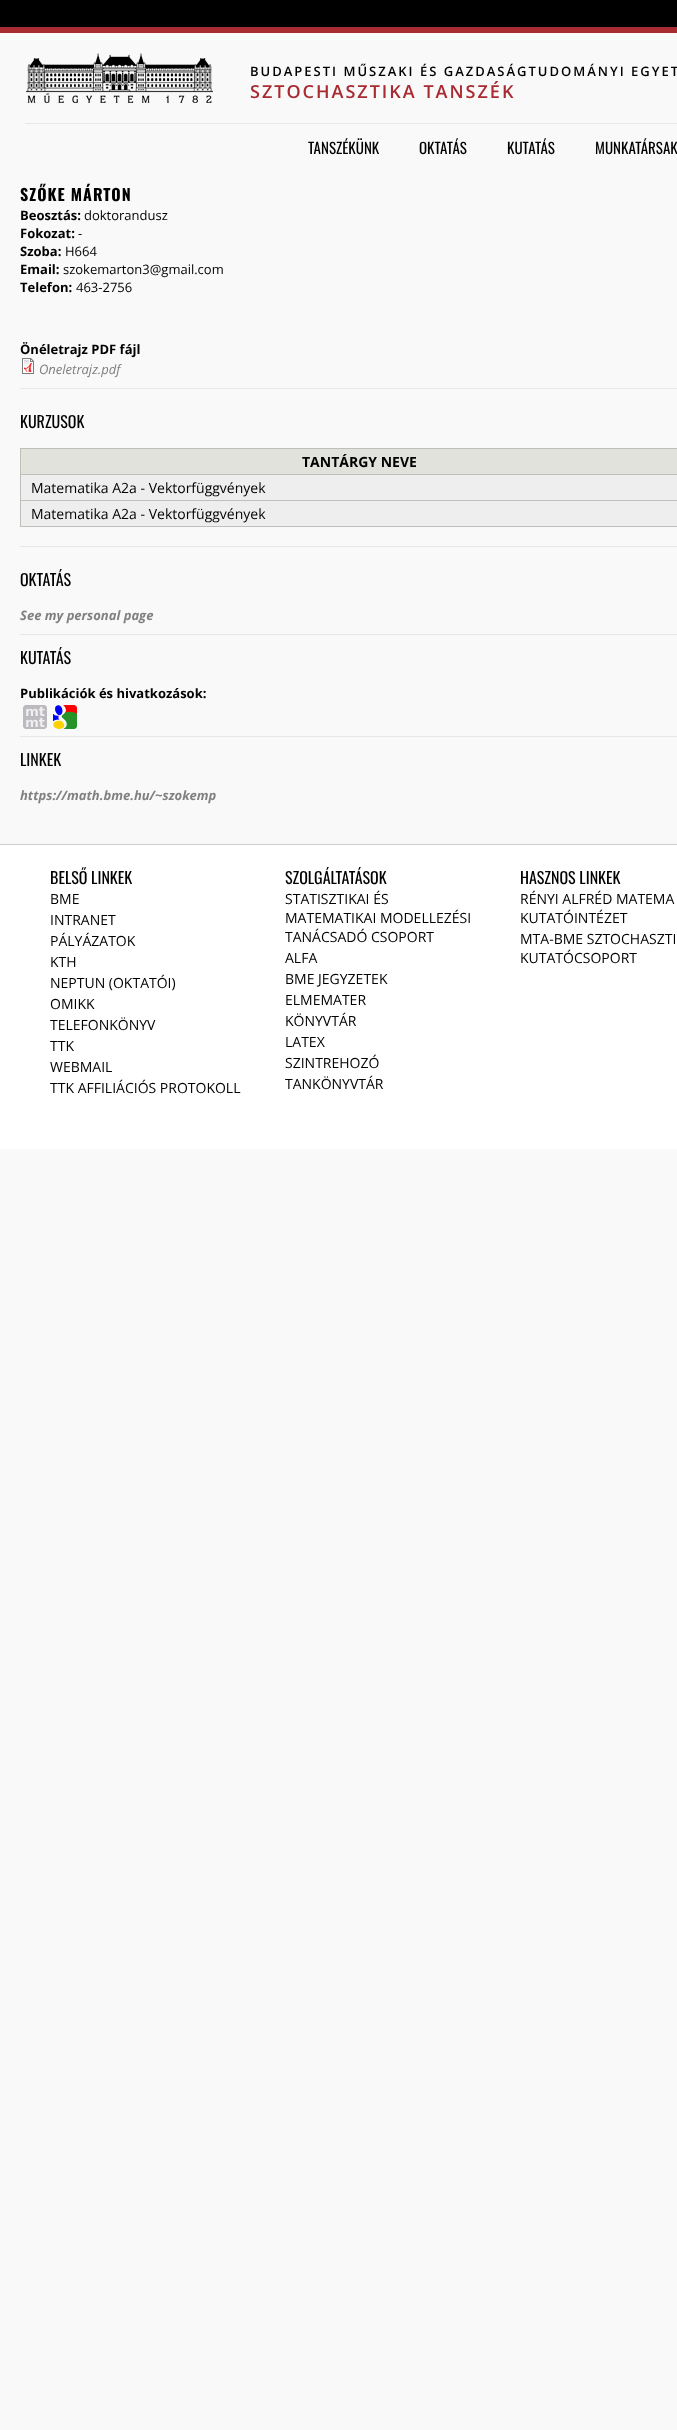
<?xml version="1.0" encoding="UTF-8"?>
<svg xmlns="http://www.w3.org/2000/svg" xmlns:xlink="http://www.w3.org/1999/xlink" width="677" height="2430">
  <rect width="100%" height="100%" fill="#f9f9fa" />
  <rect width="677" height="27" fill="#000000" />
  <rect y="27" width="677" height="6" fill="#a82b31" />
  <image x="26" y="53" width="187" height="50" xlink:href="image1.png" />
  <rect x="25" y="123" width="652" height="1" fill="#e6e6e6" />
  <image x="22" y="358" width="12" height="16" xlink:href="image2.png" />
  <rect x="20" y="388" width="657" height="1" fill="#e6e6e6" />
  <rect x="21" y="449" width="656" height="25" fill="#e1e2dc" />
  <rect x="20" y="448" width="657" height="1" fill="#bebfb9" />
  <rect x="20" y="474" width="657" height="1" fill="#bebfb9" />
  <rect x="20" y="500" width="657" height="1" fill="#bebfb9" />
  <rect x="20" y="526" width="657" height="1" fill="#bebfb9" />
  <rect x="20" y="500" width="1" height="27" fill="#bebfb9" />
  <rect x="20" y="474" width="1" height="27" fill="#bebfb9" />
  <rect x="20" y="448" width="1" height="27" fill="#bebfb9" />
  <rect x="21" y="475" width="656" height="25" fill="#eeeeee" />
  <rect x="21" y="501" width="656" height="25" fill="#eeeeee" />
  <rect x="20" y="546" width="657" height="1" fill="#e6e6e6" />
  <rect x="20" y="634" width="657" height="1" fill="#e6e6e6" />
  <image x="23" y="705" width="24" height="24" xlink:href="image3.png" />
  <image x="53" y="705" width="24" height="24" xlink:href="image4.png" />
  <rect x="20" y="736" width="657" height="1" fill="#e6e6e6" />
  <rect y="845" width="677" height="304" fill="#ffffff" />
  <rect y="844" width="677" height="1" fill="#cccccc" />
  <text x="250" y="76" style="font-family: Open Sans; font-size: 13px; font-weight: 600; letter-spacing: 2px; fill: #000000">BUDAPESTI MŰSZAKI ÉS GAZDASÁGTUDOMÁNYI EGYET</text>
  <text x="250" y="98" style="font-family: Open Sans; font-size: 18px; font-weight: 600; letter-spacing: 2px; fill: #a82b31">SZTOCHASZTIKA TANSZÉK</text>
  <text x="308" y="154" style="font-family: Oswald; font-size: 15px; fill: #000000">TANSZÉKÜNK</text>
  <text x="419" y="154" style="font-family: Oswald; font-size: 15px; fill: #000000">OKTATÁS</text>
  <text x="507" y="154" style="font-family: Oswald; font-size: 15px; fill: #000000">KUTATÁS</text>
  <text x="595" y="154" style="font-family: Oswald; font-size: 15px; fill: #000000">MUNKATÁRSAK</text>
  <text x="20" y="201" style="font-family: Oswald; font-size: 16px; font-weight: bold; letter-spacing: 1px; fill: #000000">SZŐKE MÁRTON</text>
  <text x="20" y="220" style="font-family: Open Sans; font-size: 13px; font-weight: bold; fill: #000000">Beosztás:</text>
  <text x="84" y="220" style="font-family: Open Sans; font-size: 13px; fill: #000000">doktorandusz</text>
  <text x="20" y="238" style="font-family: Open Sans; font-size: 13px; font-weight: bold; fill: #000000">Fokozat:</text>
  <text x="78" y="238" style="font-family: Open Sans; font-size: 13px; fill: #000000">-</text>
  <text x="20" y="256" style="font-family: Open Sans; font-size: 13px; font-weight: bold; fill: #000000">Szoba:</text>
  <text x="65" y="256" style="font-family: Open Sans; font-size: 13px; fill: #000000">H664</text>
  <text x="20" y="274" style="font-family: Open Sans; font-size: 13px; font-weight: bold; fill: #000000">Email:</text>
  <text x="63" y="274" style="font-family: Open Sans; font-size: 13px; fill: #000000">szokemarton3@gmail.com</text>
  <text x="20" y="292" style="font-family: Open Sans; font-size: 13px; font-weight: bold; fill: #000000">Telefon:</text>
  <text x="76" y="292" style="font-family: Open Sans; font-size: 13px; fill: #000000">463-2756</text>
  <text x="20" y="354" style="font-family: Open Sans; font-size: 13px; font-weight: bold; fill: #000000">Önéletrajz PDF fájl</text>
  <text x="39" y="374" style="font-family: Open Sans; font-size: 13px; font-style: italic; fill: #808080">Oneletrajz.pdf</text>
  <text x="20" y="428" style="font-family: Oswald; font-size: 16px; fill: #000000">KURZUSOK</text>
  <text x="302" y="467" style="font-family: Open Sans; font-size: 14px; font-weight: bold; fill: #000000">TANTÁRGY NEVE</text>
  <text x="31" y="493" style="font-family: Open Sans; font-size: 14px; fill: #000000">Matematika A2a - Vektorfüggvények</text>
  <text x="31" y="519" style="font-family: Open Sans; font-size: 14px; fill: #000000">Matematika A2a - Vektorfüggvények</text>
  <text x="20" y="586" style="font-family: Oswald; font-size: 16px; fill: #000000">OKTATÁS</text>
  <text x="20" y="620" style="font-family: Open Sans; font-size: 13px; font-weight: bold; font-style: italic; fill: #808080">See my personal page</text>
  <text x="20" y="664" style="font-family: Oswald; font-size: 16px; fill: #000000">KUTATÁS</text>
  <text x="20" y="698" style="font-family: Open Sans; font-size: 13px; font-weight: bold; fill: #000000">Publikációk és hivatkozások:</text>
  <text x="20" y="766" style="font-family: Oswald; font-size: 16px; fill: #000000">LINKEK</text>
  <text x="20" y="800" style="font-family: Open Sans; font-size: 13px; font-weight: bold; font-style: italic; fill: #808080">https://math.bme.hu/~szokemp</text>
  <text x="50" y="884" style="font-family: Oswald; font-size: 16px; fill: #000000">BELSŐ LINKEK</text>
  <text x="50" y="904" style="font-family: Open Sans; font-size: 14px; fill: #000000">BME</text>
  <text x="50" y="925" style="font-family: Open Sans; font-size: 14px; fill: #000000">INTRANET</text>
  <text x="50" y="946" style="font-family: Open Sans; font-size: 14px; fill: #000000">PÁLYÁZATOK</text>
  <text x="50" y="967" style="font-family: Open Sans; font-size: 14px; fill: #000000">KTH</text>
  <text x="50" y="988" style="font-family: Open Sans; font-size: 14px; fill: #000000">NEPTUN (OKTATÓI)</text>
  <text x="50" y="1009" style="font-family: Open Sans; font-size: 14px; fill: #000000">OMIKK</text>
  <text x="50" y="1030" style="font-family: Open Sans; font-size: 14px; fill: #000000">TELEFONKÖNYV</text>
  <text x="50" y="1051" style="font-family: Open Sans; font-size: 14px; fill: #000000">TTK</text>
  <text x="50" y="1072" style="font-family: Open Sans; font-size: 14px; fill: #000000">WEBMAIL</text>
  <text x="50" y="1093" style="font-family: Open Sans; font-size: 14px; fill: #000000">TTK AFFILIÁCIÓS PROTOKOLL</text>
  <text x="285" y="884" style="font-family: Oswald; font-size: 16px; fill: #000000">SZOLGÁLTATÁSOK</text>
  <text x="285" y="904" style="font-family: Open Sans; font-size: 14px; fill: #000000">STATISZTIKAI ÉS</text>
  <text x="285" y="923" style="font-family: Open Sans; font-size: 14px; fill: #000000">MATEMATIKAI MODELLEZÉSI</text>
  <text x="285" y="942" style="font-family: Open Sans; font-size: 14px; fill: #000000">TANÁCSADÓ CSOPORT</text>
  <text x="285" y="963" style="font-family: Open Sans; font-size: 14px; fill: #000000">ALFA</text>
  <text x="285" y="984" style="font-family: Open Sans; font-size: 14px; fill: #000000">BME JEGYZETEK</text>
  <text x="285" y="1005" style="font-family: Open Sans; font-size: 14px; fill: #000000">ELMEMATER</text>
  <text x="285" y="1026" style="font-family: Open Sans; font-size: 14px; fill: #000000">KÖNYVTÁR</text>
  <text x="285" y="1047" style="font-family: Open Sans; font-size: 14px; fill: #000000">LATEX</text>
  <text x="285" y="1068" style="font-family: Open Sans; font-size: 14px; fill: #000000">SZINTREHOZÓ</text>
  <text x="285" y="1089" style="font-family: Open Sans; font-size: 14px; fill: #000000">TANKÖNYVTÁR</text>
  <text x="520" y="884" style="font-family: Oswald; font-size: 16px; fill: #000000">HASZNOS LINKEK</text>
  <text x="520" y="904" style="font-family: Open Sans; font-size: 14px; fill: #000000">RÉNYI ALFRÉD MATEMA</text>
  <text x="520" y="923" style="font-family: Open Sans; font-size: 14px; fill: #000000">KUTATÓINTÉZET</text>
  <text x="520" y="944" style="font-family: Open Sans; font-size: 14px; fill: #000000">MTA-BME SZTOCHASZTI</text>
  <text x="520" y="963" style="font-family: Open Sans; font-size: 14px; fill: #000000">KUTATÓCSOPORT</text>
</svg>
